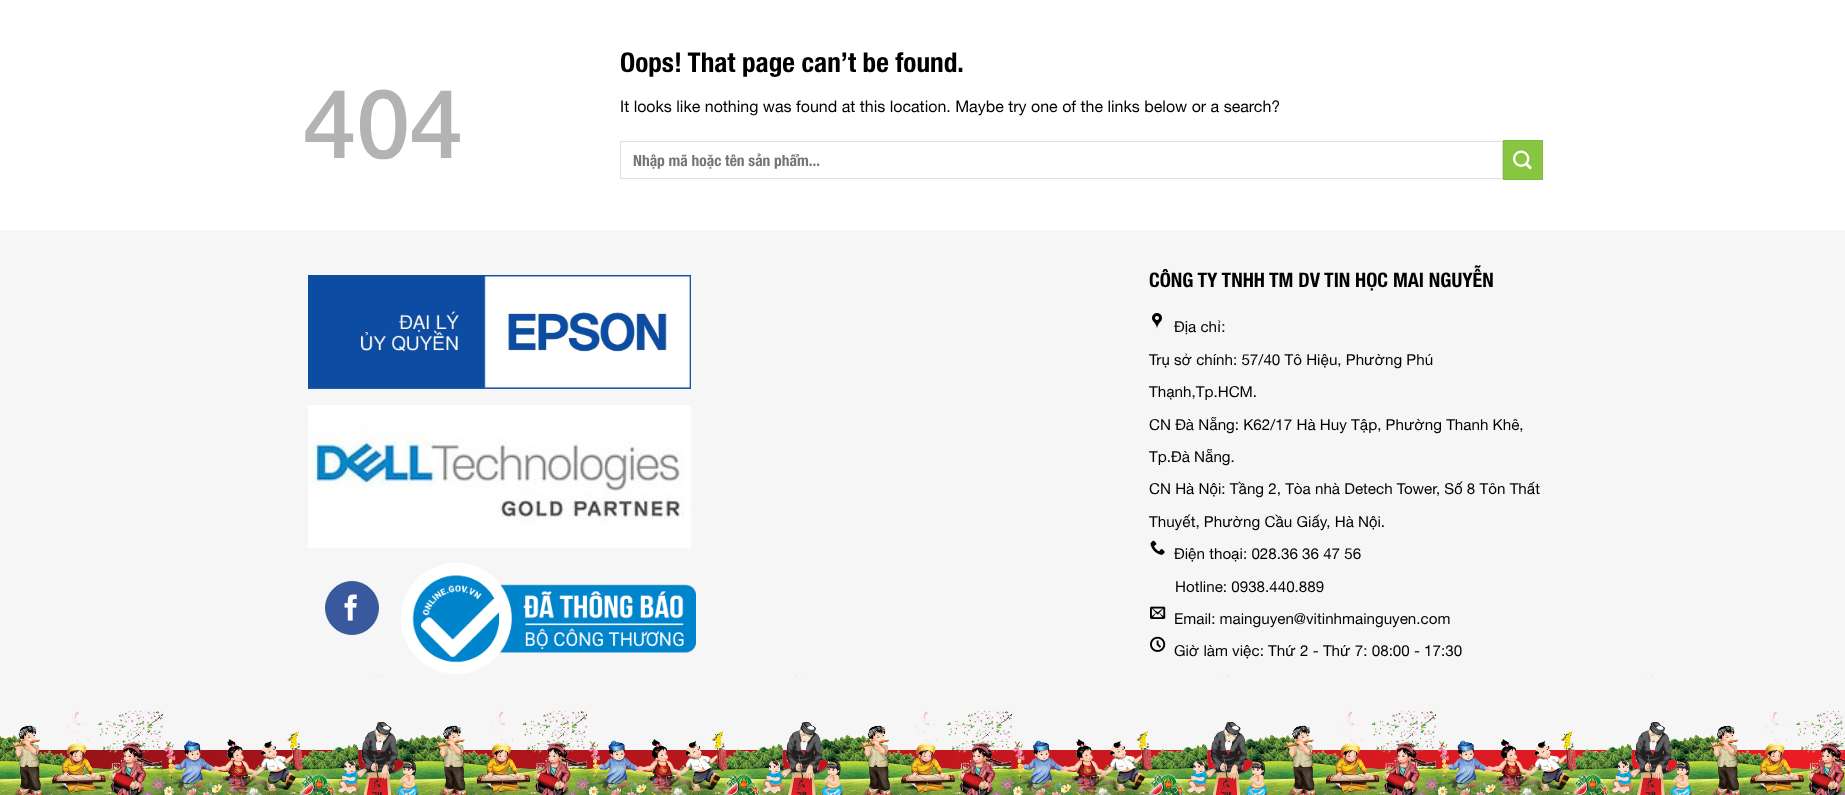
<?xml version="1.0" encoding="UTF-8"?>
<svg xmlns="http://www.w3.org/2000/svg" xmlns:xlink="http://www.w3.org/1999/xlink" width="1845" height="795">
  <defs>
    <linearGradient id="g1" gradientUnits="userSpaceOnUse" x1="0" y1="793" x2="1845" y2="793"><stop offset="0" stop-color="#971217" /><stop offset="1" stop-color="#ed1c24" /></linearGradient>
  </defs>
  <rect width="100%" height="100%" fill="#ffffff" />
  <rect x="620.5" y="141.5" width="882" height="37" fill="none" stroke="#dddddd" />
  <rect x="1503.5" y="140.5" width="39" height="39" fill="#88c540" stroke="#81bb3d" />
  <image x="1513" y="150" width="19" height="20" xlink:href="image1.png" />
  <rect y="230" width="1845" height="520" fill="#f6f6f6" />
  <image x="308" y="275" width="383" height="114" xlink:href="image2.png" />
  <image x="308" y="405" width="383" height="143" xlink:href="image3.png" />
  <circle cx="352" cy="608" r="26.5" fill="#3a589d" stroke="#3a589d" />
  <image x="344" y="594" width="13" height="27" xlink:href="image4.png" />
  <image x="401" y="563" width="295" height="111" xlink:href="image5.png" />
  <image x="1152" y="313" width="10" height="16" xlink:href="image6.png" />
  <image x="1150" y="540" width="15" height="15" xlink:href="image7.png" />
  <image x="1150" y="606" width="16" height="13" xlink:href="image8.png" />
  <image x="1150" y="636" width="16" height="16" xlink:href="image9.png" />
  <rect x="37" y="750" width="1808" height="22" fill="url(#g1)" />
  <rect x="1493" y="771" width="9" height="1" fill="#ffffff" fill-opacity="0.06" />
  <image x="0" y="675" width="1845" height="120" xlink:href="image10.png" />
  <text x="303" y="158" style="font-family: Helvetica Neue; font-size: 96px; font-weight: 500; fill: #b3b3b3">404</text>
  <text x="620" y="72" style="font-family: Helvetica Neue; font-size: 27.25px; font-weight: bold; fill: #000000">Oops! That page can’t be found.</text>
  <text x="620" y="112" style="font-family: Helvetica Neue; font-size: 16px; fill: #000000">It looks like nothing was found at this location. Maybe try one of the links below or a search?</text>
  <text x="633" y="166" style="font-family: Helvetica Neue; font-size: 15.5px; font-weight: bold; fill: #757575">Nhập mã hoặc tên sản phẩm...</text>
  <text x="1149" y="287" style="font-family: Helvetica Neue; font-size: 20px; font-weight: bold; fill: #000000">CÔNG TY TNHH TM DV TIN HỌC MAI NGUYỄN</text>
  <text x="1174" y="332" style="font-family: Helvetica Neue; font-size: 15.2px; fill: #000000">Địa chỉ:</text>
  <text x="1149" y="365" style="font-family: Helvetica Neue; font-size: 15.2px; fill: #000000">Trụ sở chính: 57/40 Tô Hiệu, Phường Phú</text>
  <text x="1149" y="397" style="font-family: Helvetica Neue; font-size: 15.2px; fill: #000000">Thạnh,Tp.HCM.</text>
  <text x="1149" y="430" style="font-family: Helvetica Neue; font-size: 15.2px; fill: #000000">CN Đà Nẵng: K62/17 Hà Huy Tập, Phường Thanh Khê,</text>
  <text x="1149" y="462" style="font-family: Helvetica Neue; font-size: 15.2px; fill: #000000">Tp.Đà Nẵng.</text>
  <text x="1149" y="494" style="font-family: Helvetica Neue; font-size: 15.2px; fill: #000000">CN Hà Nội: Tầng 2, Tòa nhà Detech Tower, Số 8 Tôn Thất</text>
  <text x="1149" y="527" style="font-family: Helvetica Neue; font-size: 15.2px; fill: #000000">Thuyết, Phường Cầu Giấy, Hà Nội.</text>
  <text x="1174" y="559" style="font-family: Helvetica Neue; font-size: 15.2px; fill: #000000">Điện thoại: 028.36 36 47 56</text>
  <text x="1175" y="592" style="font-family: Helvetica Neue; font-size: 15.2px; fill: #000000">Hotline: 0938.440.889</text>
  <text x="1174" y="624" style="font-family: Helvetica Neue; font-size: 15.2px; fill: #000000">Email: mainguyen@vitinhmainguyen.com</text>
  <text x="1174" y="656" style="font-family: Helvetica Neue; font-size: 15.2px; fill: #000000">Giờ làm việc: Thứ 2 - Thứ 7: 08:00 - 17:30</text>
</svg>
